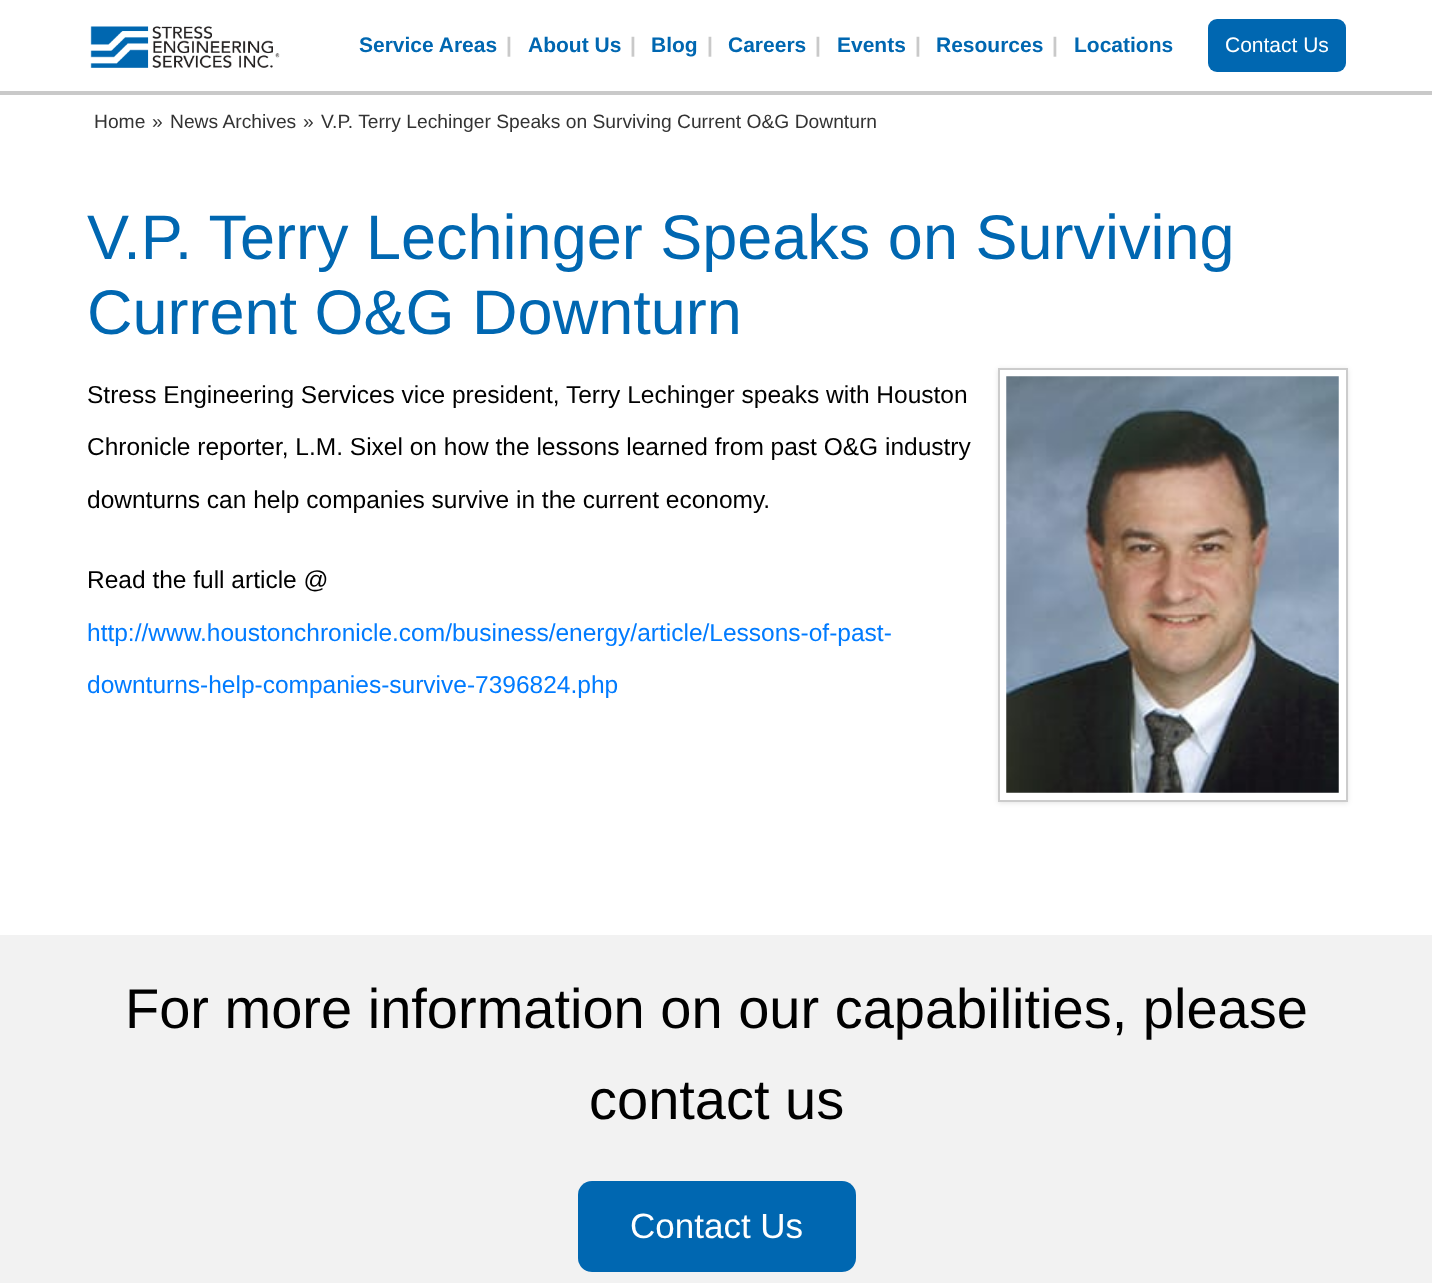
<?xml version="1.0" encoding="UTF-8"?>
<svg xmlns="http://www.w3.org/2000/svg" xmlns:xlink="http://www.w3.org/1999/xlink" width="1432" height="1283">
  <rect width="100%" height="100%" fill="#ffffff" />
  <rect y="91" width="1432" height="4" fill="#c9c9c9" />
  <image x="90" y="26" width="190" height="42" xlink:href="image1.png" />
  <rect x="1208" y="19" width="138" height="53" rx="9" fill="#0067b1" />
  <rect x="998" y="369" width="350" height="434" fill="#000000" fill-opacity="0.1" filter="blur(2.5px)" />
  <rect x="999" y="369" width="348" height="432" fill="#ffffff" stroke="#cccccc" stroke-width="2" />
  <image x="1006" y="376" width="333" height="417" xlink:href="image2.png" />
  <rect y="935" width="1432" height="348" fill="#f2f2f2" />
  <rect x="578" y="1181" width="278" height="91" rx="14" fill="#0067b1" />
  <text x="359" y="52" style="font-family: Liberation Sans; font-size: 21px; font-weight: bold; fill: #0067b1">Service Areas</text>
  <text x="506" y="52" style="font-family: Liberation Sans; font-size: 21px; font-weight: bold; fill: #c9c9c9">|</text>
  <text x="528" y="52" style="font-family: Liberation Sans; font-size: 21px; font-weight: bold; fill: #0067b1">About Us</text>
  <text x="630" y="52" style="font-family: Liberation Sans; font-size: 21px; font-weight: bold; fill: #c9c9c9">|</text>
  <text x="651" y="52" style="font-family: Liberation Sans; font-size: 21px; font-weight: bold; fill: #0067b1">Blog</text>
  <text x="707" y="52" style="font-family: Liberation Sans; font-size: 21px; font-weight: bold; fill: #c9c9c9">|</text>
  <text x="728" y="52" style="font-family: Liberation Sans; font-size: 21px; font-weight: bold; fill: #0067b1">Careers</text>
  <text x="815" y="52" style="font-family: Liberation Sans; font-size: 21px; font-weight: bold; fill: #c9c9c9">|</text>
  <text x="837" y="52" style="font-family: Liberation Sans; font-size: 21px; font-weight: bold; fill: #0067b1">Events</text>
  <text x="915" y="52" style="font-family: Liberation Sans; font-size: 21px; font-weight: bold; fill: #c9c9c9">|</text>
  <text x="936" y="52" style="font-family: Liberation Sans; font-size: 21px; font-weight: bold; fill: #0067b1">Resources</text>
  <text x="1052" y="52" style="font-family: Liberation Sans; font-size: 21px; font-weight: bold; fill: #c9c9c9">|</text>
  <text x="1074" y="52" style="font-family: Liberation Sans; font-size: 21px; font-weight: bold; fill: #0067b1">Locations</text>
  <text x="1225" y="52" style="font-family: Liberation Sans; font-size: 21px; fill: #ffffff">Contact Us</text>
  <text x="94" y="128" style="font-family: Liberation Sans; font-size: 19.25px; fill: #333333">Home</text>
  <text x="152" y="128" style="font-family: Liberation Sans; font-size: 19.25px; fill: #333333">»</text>
  <text x="170" y="128" style="font-family: Liberation Sans; font-size: 19.25px; fill: #333333">News Archives</text>
  <text x="303" y="128" style="font-family: Liberation Sans; font-size: 19.25px; fill: #333333">»</text>
  <text x="321" y="128" style="font-family: Liberation Sans; font-size: 19.25px; fill: #333333">V.P. Terry Lechinger Speaks on Surviving Current O&amp;G Downturn</text>
  <text x="87" y="259" style="font-family: Liberation Sans; font-size: 63px; fill: #0067b1">V.P. Terry Lechinger Speaks on Surviving</text>
  <text x="87" y="334" style="font-family: Liberation Sans; font-size: 63px; fill: #0067b1">Current O&amp;G Downturn</text>
  <text x="87" y="403" style="font-family: Liberation Sans; font-size: 24.5px; fill: #000000">Stress Engineering Services vice president, Terry Lechinger speaks with Houston</text>
  <text x="87" y="455" style="font-family: Liberation Sans; font-size: 24.5px; fill: #000000">Chronicle reporter, L.M. Sixel on how the lessons learned from past O&amp;G industry</text>
  <text x="87" y="508" style="font-family: Liberation Sans; font-size: 24.5px; fill: #000000">downturns can help companies survive in the current economy.</text>
  <text x="87" y="588" style="font-family: Liberation Sans; font-size: 24.5px; fill: #000000">Read the full article @</text>
  <text x="87" y="641" style="font-family: Liberation Sans; font-size: 24.5px; fill: #007bff">http://www.houstonchronicle.com/business/energy/article/Lessons-of-past-</text>
  <text x="87" y="693" style="font-family: Liberation Sans; font-size: 24.5px; fill: #007bff">downturns-help-companies-survive-7396824.php</text>
  <text x="125" y="1028" style="font-family: Liberation Sans; font-size: 56px; fill: #000000">For more information on our capabilities, please</text>
  <text x="589" y="1119" style="font-family: Liberation Sans; font-size: 56px; fill: #000000">contact us</text>
  <text x="630" y="1238" style="font-family: Liberation Sans; font-size: 35px; fill: #ffffff">Contact Us</text>
</svg>
